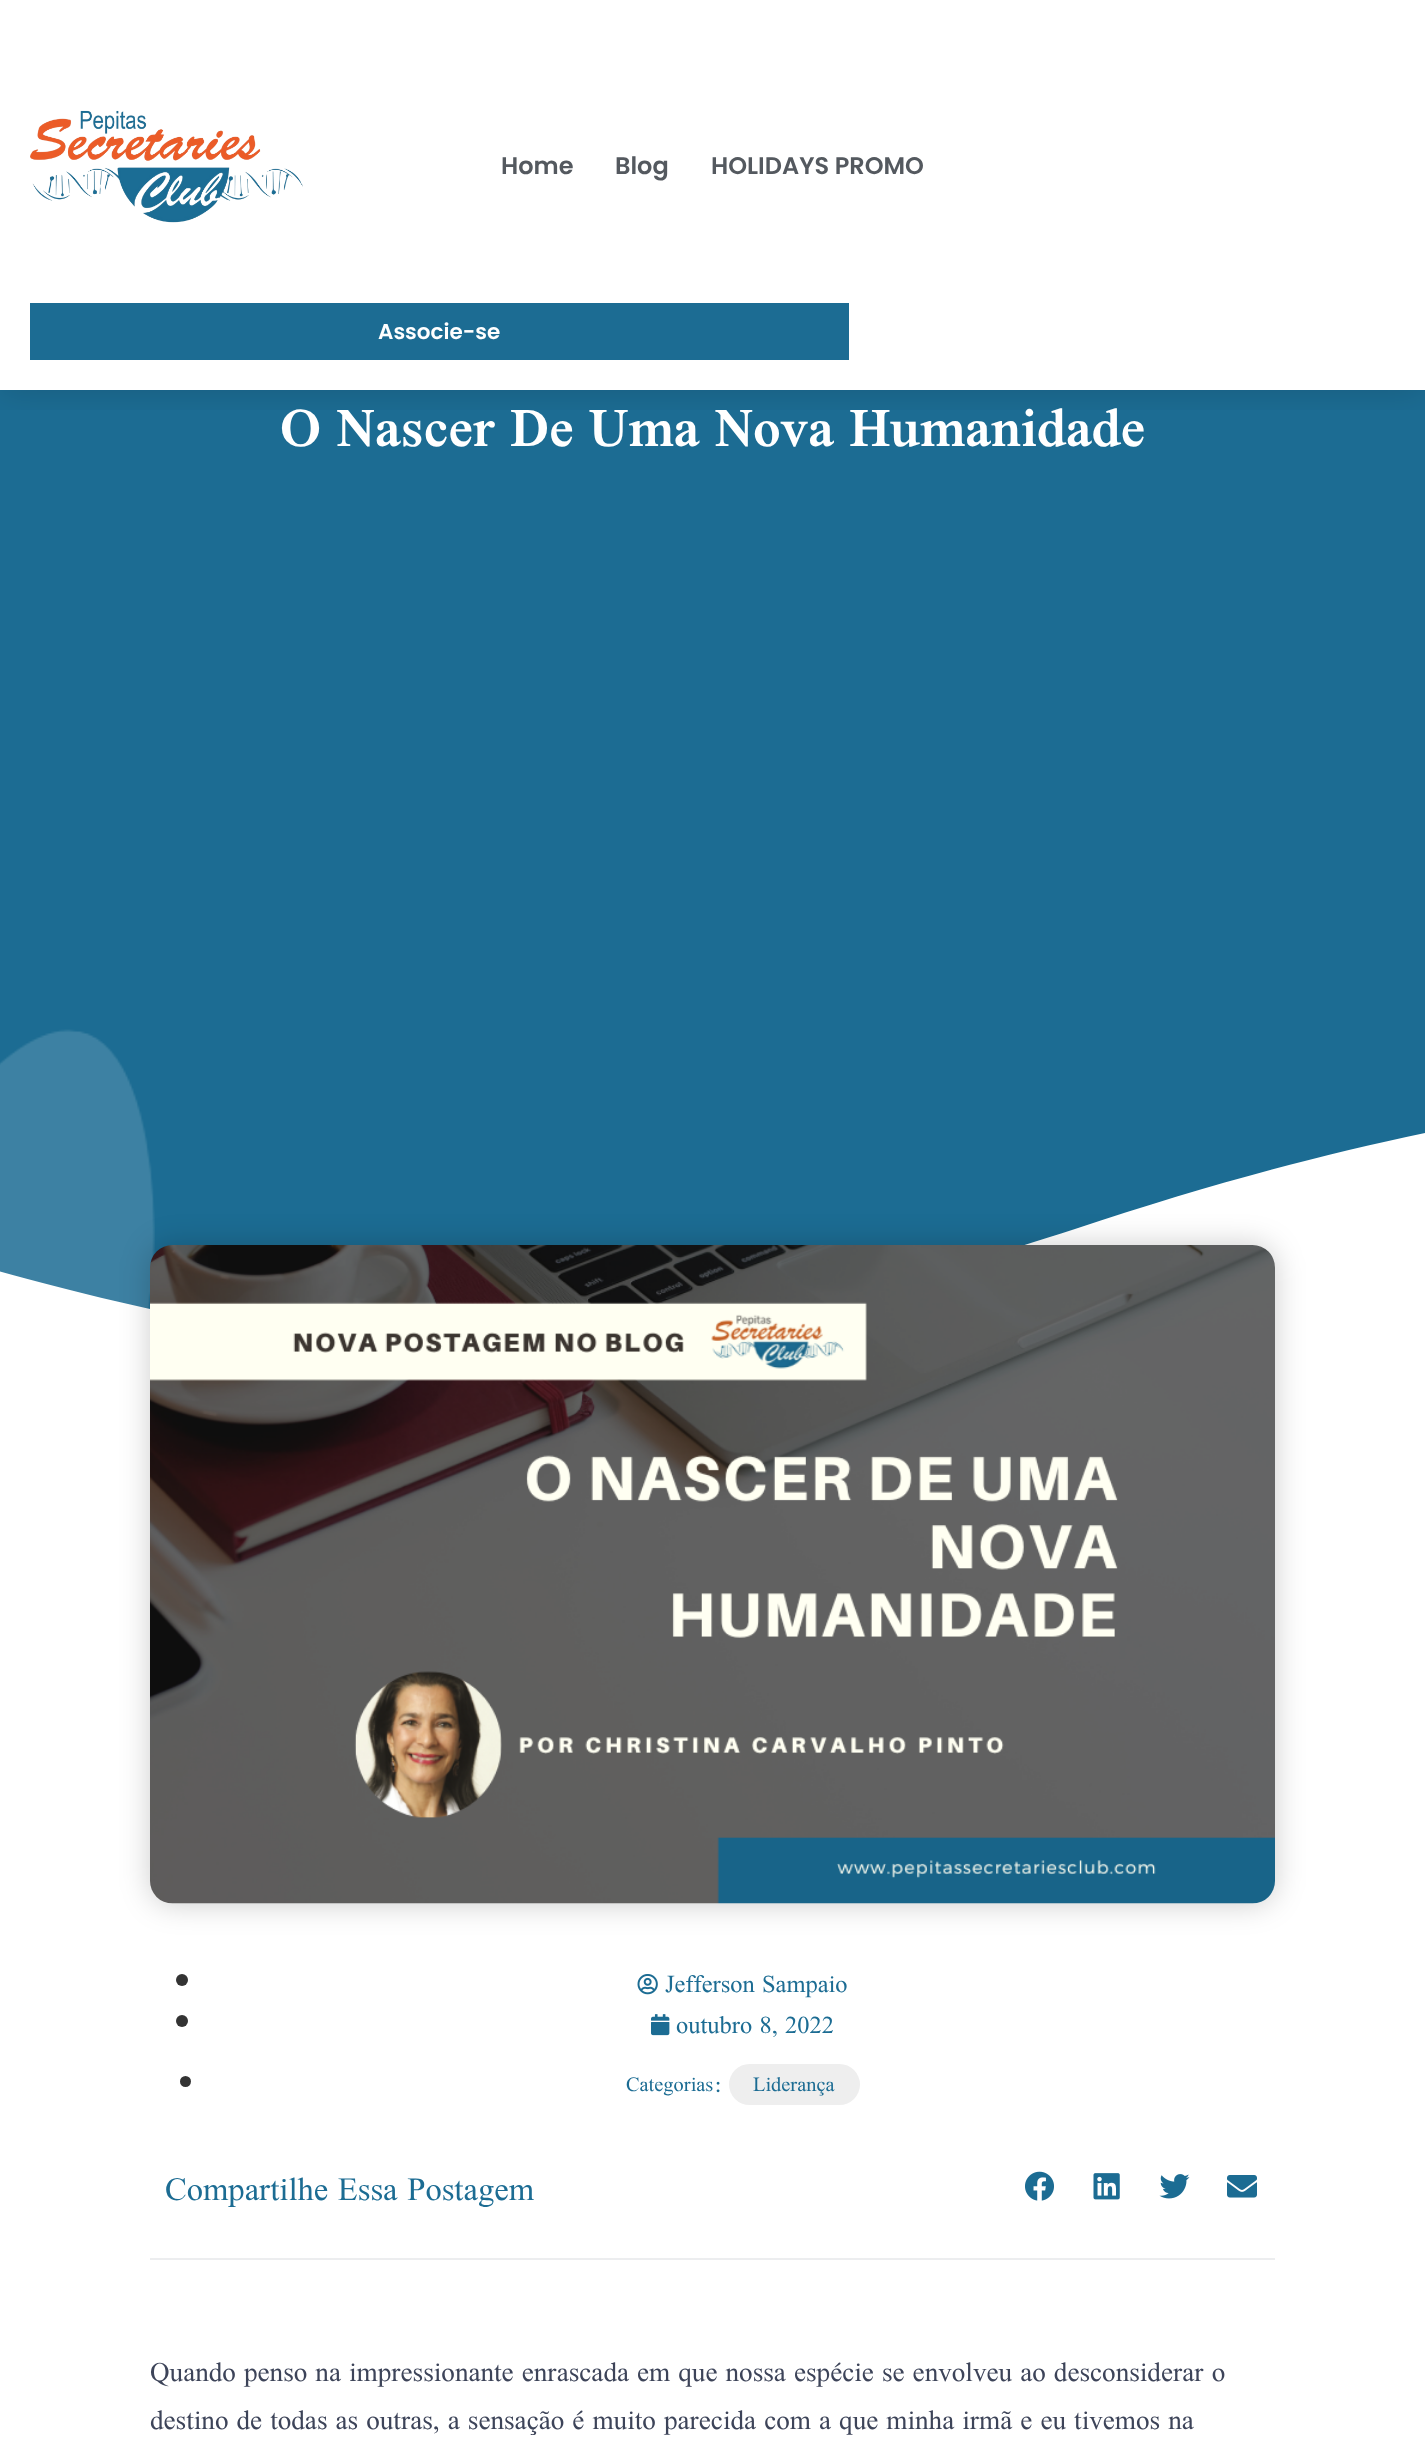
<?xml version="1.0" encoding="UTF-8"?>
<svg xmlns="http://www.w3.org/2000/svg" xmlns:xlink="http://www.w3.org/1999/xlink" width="1425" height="2441">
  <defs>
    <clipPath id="clip1"><rect x="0" y="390" width="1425" height="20" /></clipPath>
    <clipPath id="clip2"><rect y="1074" width="1425" height="293" /></clipPath>
  </defs>
  <rect width="100%" height="100%" fill="#ffffff" />
  <rect y="390" width="1425" height="919" fill="#1c6c93" />
  <g clip-path="url(#clip1)">
    <rect width="1425" height="390" fill="#000000" fill-opacity="0.15" filter="blur(18px)" />
  </g>
  <image x="30" y="110" width="273" height="113" xlink:href="image1.png" />
  <rect x="30" y="303" width="819" height="57" fill="#1c6c93" />
  <image x="0" y="1029" width="155" height="280" xlink:href="image2.png" />
  <g clip-path="url(#clip2)">
    <path d="M 423 1349 c 84 7 191 -1 280 -16 c 87 -14 263 -69 372 -104 c 281 -94 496 -130 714 -146 c 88 -6 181 -10 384 8 c 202 17 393 75 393 75 v 202 h -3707 v -89 c 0 0 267 -95 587 -89 c 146 2 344 19 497 65 c 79 24 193 54 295 71 c 101 19 147 20 185 23 z" fill="#ffffff" />
  </g>
  <rect x="150" y="1245" width="1125" height="659" rx="23" fill="#000000" fill-opacity="0.2" filter="blur(15px)" />
  <image x="150" y="1245" width="1125" height="659" xlink:href="image3.png" />
  <circle cx="182" cy="1980" r="6" fill="#333333" />
  <image x="637" y="1974" width="21" height="21" xlink:href="image4.png" />
  <circle cx="182" cy="2021" r="6" fill="#333333" />
  <image x="651" y="2014" width="19" height="22" xlink:href="image5.png" />
  <circle cx="185.5" cy="2081.5" r="5.5" fill="#333333" />
  <rect x="729" y="2064" width="131" height="41" rx="20.5" fill="#eeeeee" />
  <rect x="150" y="2258" width="1125" height="2" fill="#ecedef" />
  <image x="1025" y="2171" width="29" height="30" xlink:href="image6.png" />
  <image x="1093" y="2173" width="27" height="27" xlink:href="image7.png" />
  <image x="1159" y="2174" width="31" height="25" xlink:href="image8.png" />
  <image x="1227" y="2175" width="30" height="23" xlink:href="image9.png" />
  <text x="501" y="174" style="font-family: Poppins; font-size: 24px; font-weight: 600; fill: #54595f">Home</text>
  <text x="615" y="174" style="font-family: Poppins; font-size: 24px; font-weight: 600; fill: #54595f">Blog</text>
  <text x="711" y="174" style="font-family: Poppins; font-size: 24px; font-weight: 600; fill: #54595f">HOLIDAYS PROMO</text>
  <text x="378" y="339" style="font-family: Poppins; font-size: 21.5px; font-weight: 600; fill: #ffffff">Associe-se</text>
  <text x="280" y="446" style="font-family: Scheherazade New; font-size: 60px; font-weight: 600; fill: #ffffff">O Nascer De Uma Nova Humanidade</text>
  <text x="665" y="1992" style="font-family: Scheherazade New; font-size: 27px; fill: #1c6c93">Jefferson Sampaio</text>
  <text x="676" y="2033" style="font-family: Scheherazade New; font-size: 27px; fill: #1c6c93">outubro 8, 2022</text>
  <text x="626" y="2091" style="font-family: Scheherazade New; font-size: 22.5px; fill: #1c6c93">Categorias:</text>
  <text x="753" y="2091" style="font-family: Scheherazade New; font-size: 22.5px; fill: #1c6c93">Liderança</text>
  <text x="165" y="2200" style="font-family: Scheherazade New; font-size: 36px; fill: #1c6c93">Compartilhe Essa Postagem</text>
  <text x="150" y="2381" style="font-family: Scheherazade New; font-size: 30px; fill: #3d4459">Quando penso na impressionante enrascada em que nossa espécie se envolveu ao desconsiderar o</text>
  <text x="150" y="2429" style="font-family: Scheherazade New; font-size: 30px; fill: #3d4459">destino de todas as outras, a sensação é muito parecida com a que minha irmã e eu tivemos na</text>
</svg>
